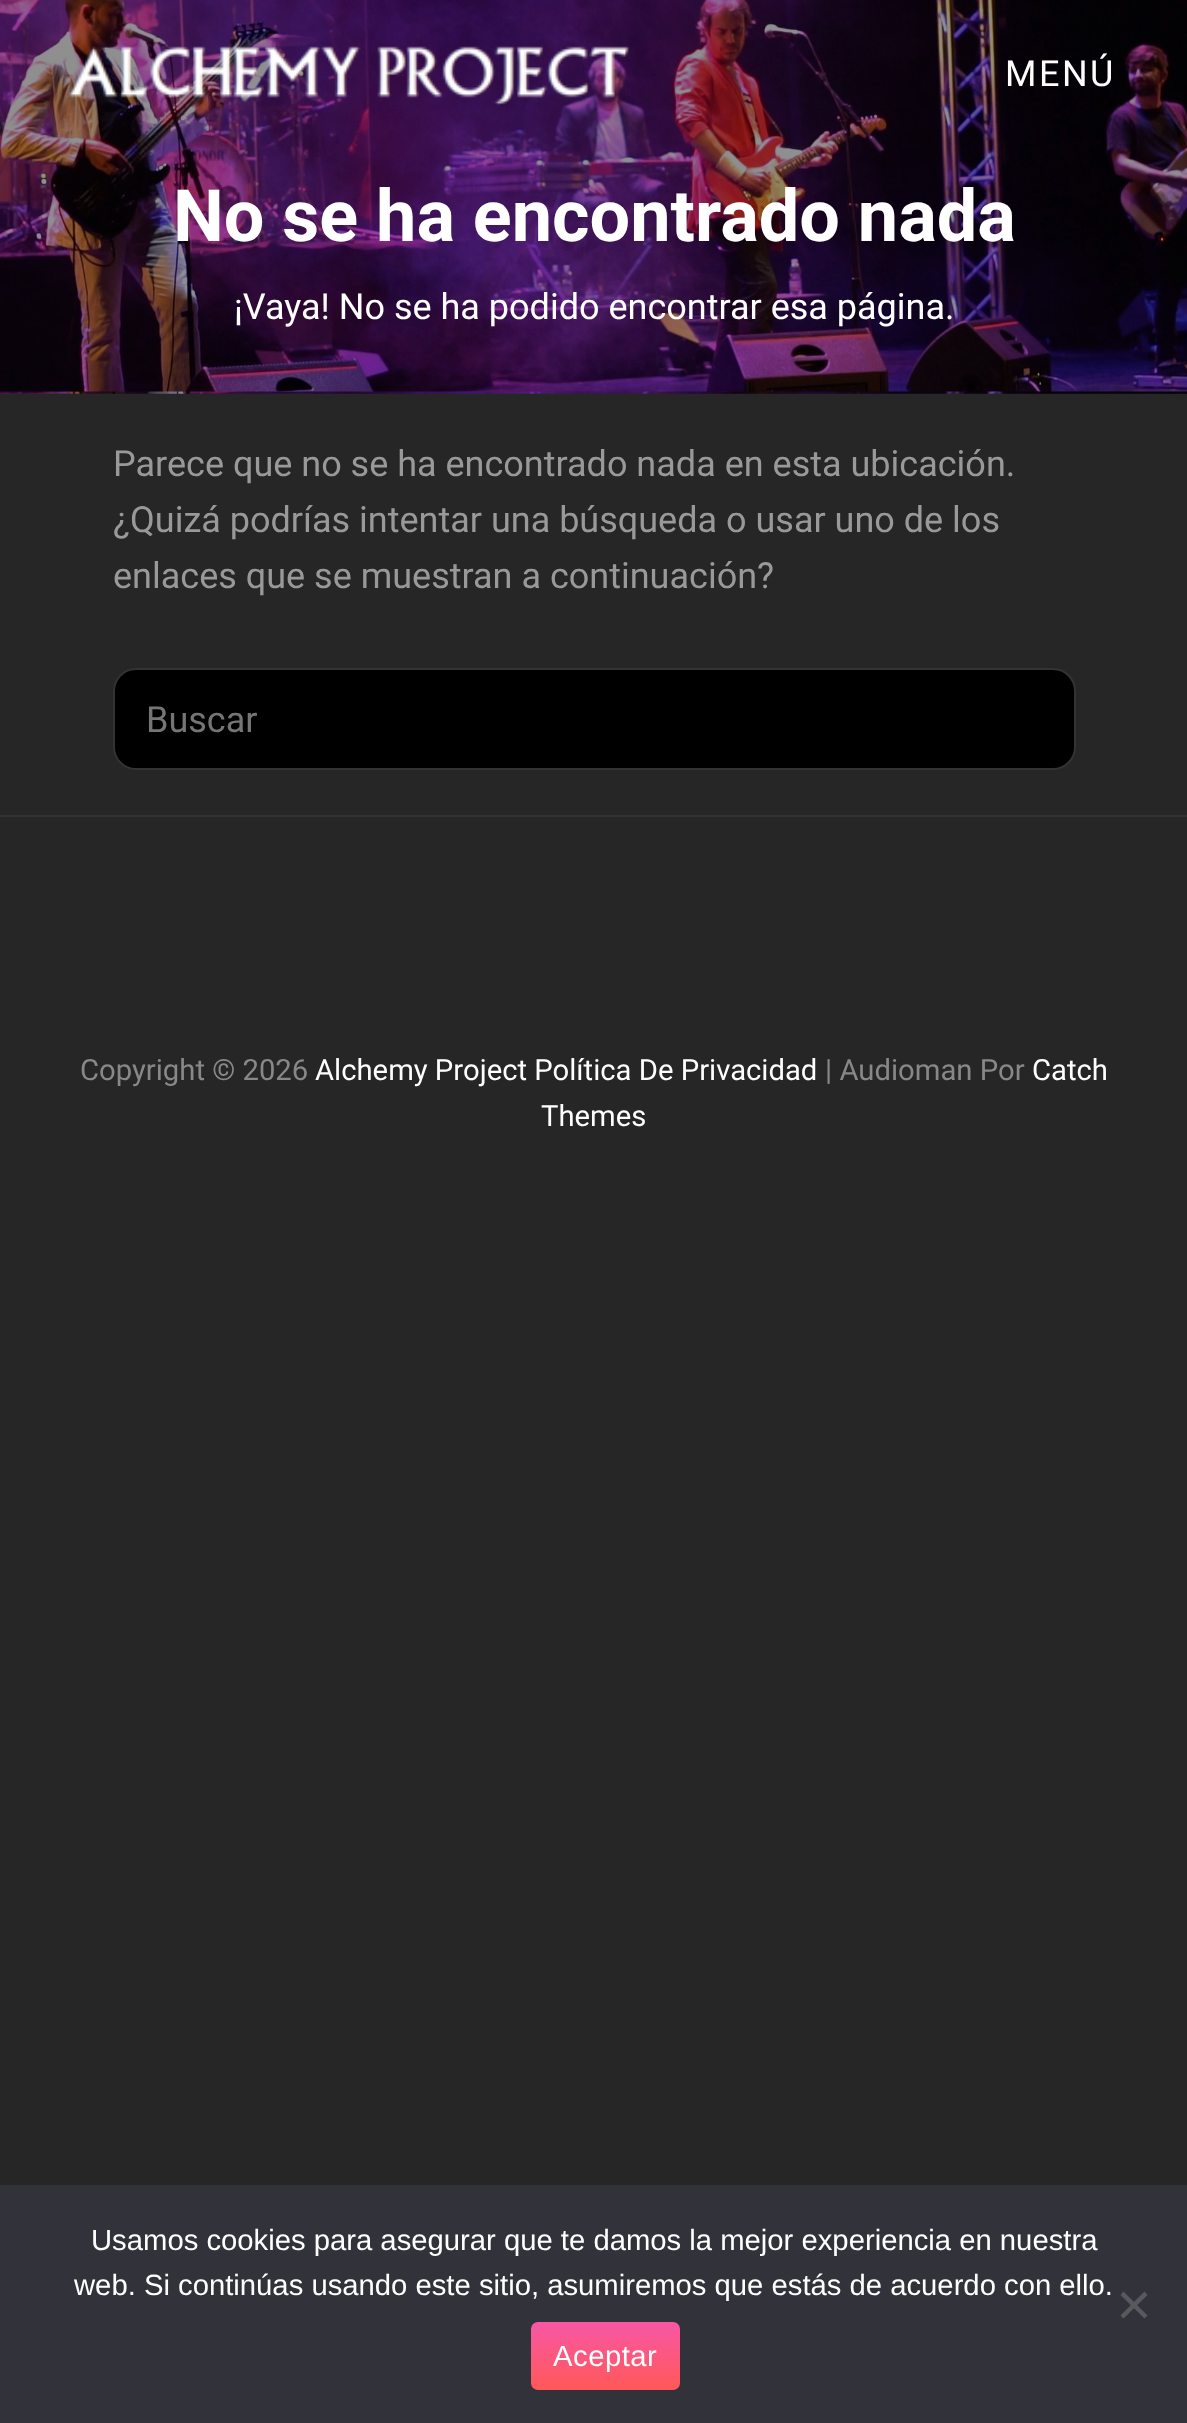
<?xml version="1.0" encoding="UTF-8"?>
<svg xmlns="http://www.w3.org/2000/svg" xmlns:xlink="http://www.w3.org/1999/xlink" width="1187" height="2423">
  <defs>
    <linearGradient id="g1" gradientUnits="userSpaceOnUse" x1="605" y1="2322" x2="605" y2="2390"><stop offset="0" stop-color="#f857a6" /><stop offset="1" stop-color="#ff5858" /></linearGradient>
  </defs>
  <rect width="100%" height="100%" fill="#262626" />
  <image x="0" y="391" width="1187" height="3" xlink:href="image3.png" />
  <image x="0" y="0" width="1187" height="392" xlink:href="image2.png" />
  <image x="68" y="46" width="562" height="60" xlink:href="image1.png" />
  <rect y="815" width="1187" height="2" fill="#333333" />
  <rect x="114" y="669" width="961" height="100" rx="22" fill="#000000" stroke="#333333" stroke-width="2" />
  <rect y="2185" width="1187" height="238" fill="#32323a" />
  <path d="M 1144.5 2291.5 l 3 3.5 l -24 23.5 l -3 -3 z" fill="#59595d" />
  <path d="M 1120.5 2295 l 3 -3.5 l 24 24 l -3 3 z" fill="#59595d" />
  <rect x="531" y="2322" width="149" height="68" rx="7" fill="url(#g1)" />
  <text x="1005" y="86" style="font-family: Roboto; font-size: 36px; letter-spacing: 2.5px; fill: #ffffff">MENÚ</text>
  <text x="173" y="241" style="font-family: Roboto; font-size: 72px; font-weight: bold; fill: #ffffff">No se ha encontrado nada</text>
  <text x="234" y="319" style="font-family: Roboto; font-size: 36px; fill: #ffffff">¡Vaya! No se ha podido encontrar esa página.</text>
  <text x="113" y="476" style="font-family: Roboto; font-size: 36px; fill: #999999">Parece que no se ha encontrado nada en esta ubicación.</text>
  <text x="113" y="532" style="font-family: Roboto; font-size: 36px; fill: #999999">¿Quizá podrías intentar una búsqueda o usar uno de los</text>
  <text x="113" y="588" style="font-family: Roboto; font-size: 36px; fill: #999999">enlaces que se muestran a continuación?</text>
  <text x="146" y="732" style="font-family: Roboto; font-size: 36px; fill: #757575">Buscar</text>
  <text x="80" y="1080" style="font-family: Roboto; font-size: 29.25px; fill: #888888">Copyright © 2026</text>
  <text x="315" y="1080" style="font-family: Roboto; font-size: 29.25px; fill: #ffffff">Alchemy Project Política De Privacidad</text>
  <text x="825" y="1080" style="font-family: Roboto; font-size: 29.25px; fill: #888888">| Audioman Por</text>
  <text x="1032" y="1080" style="font-family: Roboto; font-size: 29.25px; fill: #ffffff">Catch</text>
  <text x="541" y="1126" style="font-family: Roboto; font-size: 29.25px; fill: #ffffff">Themes</text>
  <text x="91" y="2250" style="font-family: Liberation Sans; font-size: 29.25px; fill: #ffffff">Usamos cookies para asegurar que te damos la mejor experiencia en nuestra</text>
  <text x="74" y="2295" style="font-family: Liberation Sans; font-size: 29.25px; fill: #ffffff">web. Si continúas usando este sitio, asumiremos que estás de acuerdo con ello.</text>
  <text x="553" y="2366" style="font-family: Liberation Sans; font-size: 29.25px; letter-spacing: 0.5px; fill: #ffffff">Aceptar</text>
</svg>
